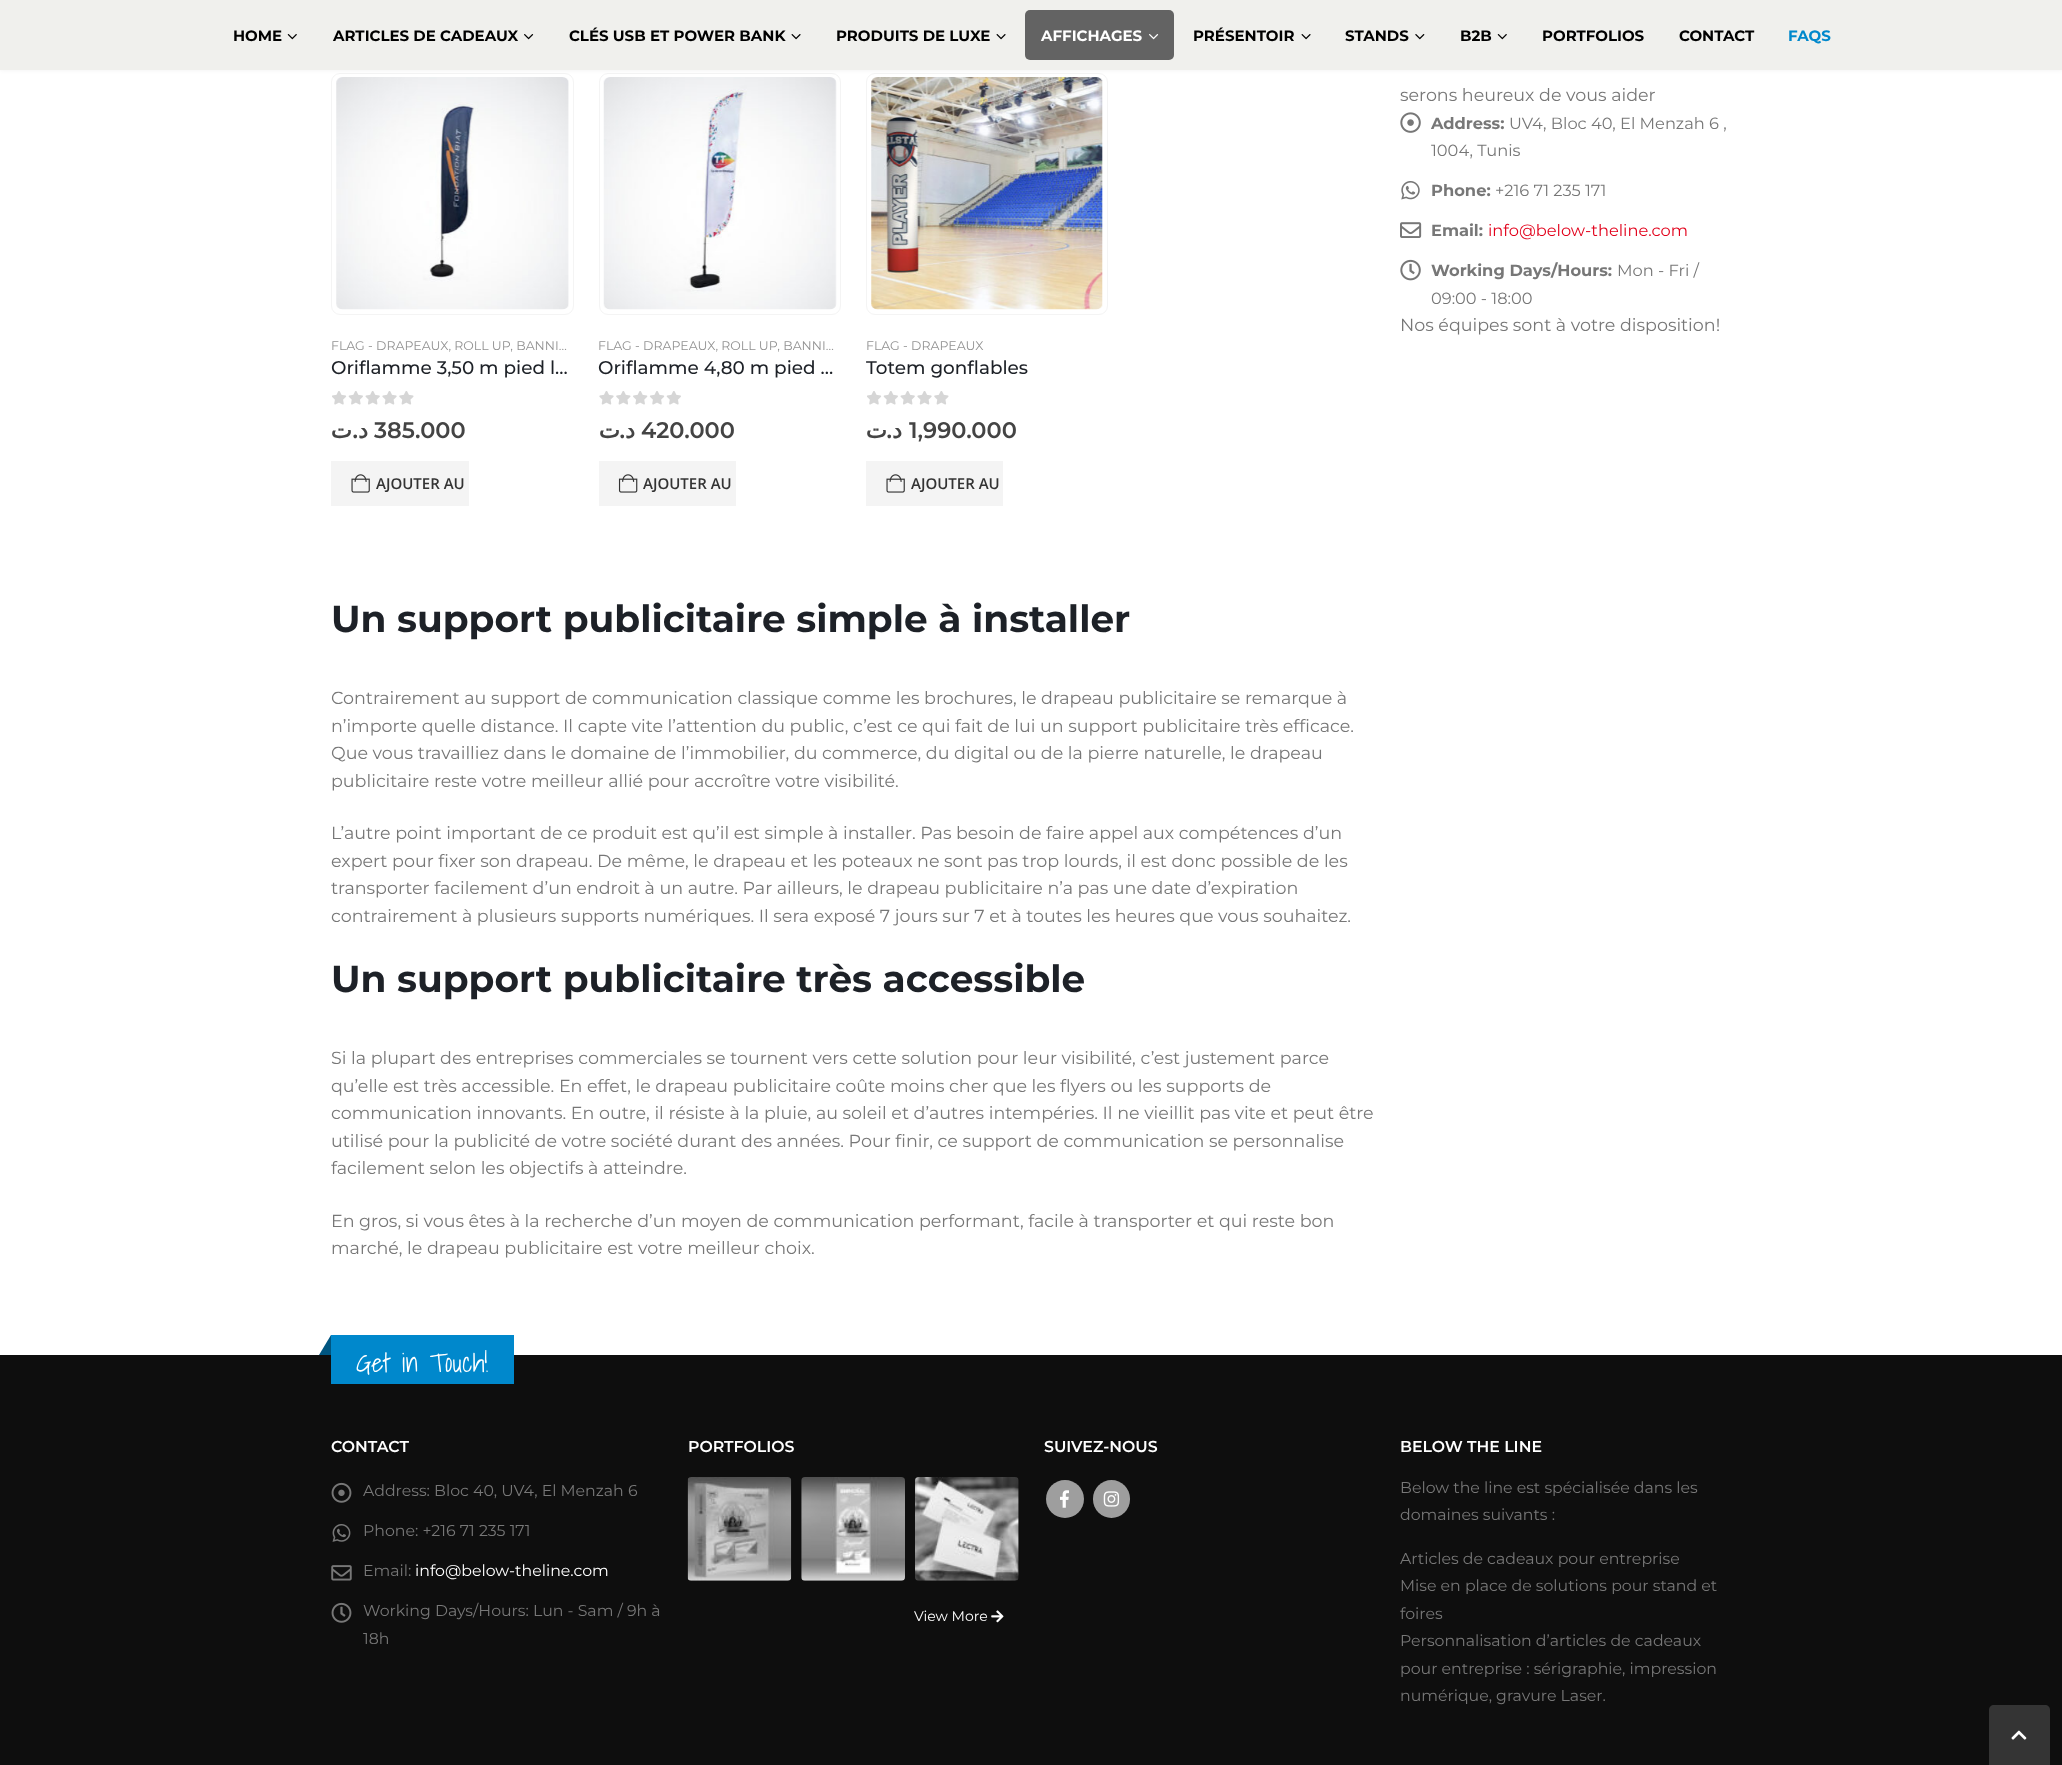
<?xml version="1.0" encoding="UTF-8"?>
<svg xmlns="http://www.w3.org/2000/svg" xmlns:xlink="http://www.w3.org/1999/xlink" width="2062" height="1765">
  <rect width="100%" height="100%" fill="#ffffff" />
  <rect x="331.5" y="73.5" width="242" height="241" rx="8.5" fill="none" stroke="#f4f4f4" />
  <rect x="599.5" y="73.5" width="241" height="241" rx="8.5" fill="none" stroke="#f4f4f4" />
  <rect x="866.5" y="73.5" width="241" height="241" rx="8.5" fill="none" stroke="#f4f4f4" />
  <rect width="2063" height="70" fill="#000000" fill-opacity="0.06" filter="blur(2px)" />
  <rect width="2062" height="70" fill="#f0f0ed" />
  <image x="287" y="34" width="10" height="6" xlink:href="image1.png" />
  <image x="524" y="34" width="10" height="6" xlink:href="image2.png" />
  <image x="791" y="34" width="10" height="6" xlink:href="image3.png" />
  <image x="996" y="34" width="10" height="6" xlink:href="image3.png" />
  <rect x="1025" y="10" width="149" height="50" rx="5" fill="#636363" />
  <image x="1149" y="34" width="10" height="6" xlink:href="image4.png" />
  <image x="1301" y="34" width="10" height="6" xlink:href="image3.png" />
  <image x="1415" y="34" width="10" height="6" xlink:href="image5.png" />
  <image x="1497" y="34" width="10" height="6" xlink:href="image1.png" />
  <image x="1400" y="112" width="21" height="21" xlink:href="image6.png" />
  <image x="1401" y="181" width="19" height="19" xlink:href="image7.png" />
  <image x="1400" y="222" width="22" height="16" xlink:href="image8.png" />
  <image x="1400" y="259" width="21" height="22" xlink:href="image9.png" />
  <image x="336" y="77" width="233" height="233" xlink:href="image10.png" />
  <image x="332" y="391" width="82" height="14" xlink:href="image11.png" />
  <rect x="331" y="461" width="138" height="45" fill="#f4f4f4" />
  <image x="351" y="474" width="19" height="19" xlink:href="image12.png" />
  <image x="603" y="77" width="234" height="233" xlink:href="image13.png" />
  <image x="599" y="391" width="82" height="14" xlink:href="image14.png" />
  <rect x="599" y="461" width="137" height="45" fill="#f4f4f4" />
  <image x="618" y="474" width="20" height="19" xlink:href="image15.png" />
  <image x="871" y="77" width="232" height="233" xlink:href="image16.png" />
  <image x="867" y="391" width="82" height="14" xlink:href="image11.png" />
  <rect x="866" y="461" width="137" height="45" fill="#f4f4f4" />
  <image x="886" y="474" width="19" height="19" xlink:href="image12.png" />
  <rect y="1355" width="2062" height="410" fill="#0e0e0e" />
  <rect x="331" y="1335" width="183" height="49" fill="#0088cc" />
  <path d="M 331 1335 v 20 h -12 z" fill="#005580" />
  <image x="331" y="1482" width="21" height="21" xlink:href="image17.png" />
  <image x="332" y="1524" width="19" height="18" xlink:href="image18.png" />
  <image x="331" y="1565" width="21" height="16" xlink:href="image19.png" />
  <image x="331" y="1602" width="21" height="21" xlink:href="image20.png" />
  <image x="687" y="1477" width="105" height="104" xlink:href="image21.png" />
  <image x="801" y="1477" width="104" height="104" xlink:href="image22.png" />
  <image x="915" y="1477" width="104" height="104" xlink:href="image23.png" />
  <image x="991" y="1610" width="13" height="13" xlink:href="image24.png" />
  <circle cx="1065" cy="1499" r="19" fill="#9e9e9e" />
  <image x="1060" y="1490" width="9" height="18" xlink:href="image25.png" />
  <rect x="1093" y="1480" width="37" height="38" rx="18.5" fill="#9e9e9e" />
  <image x="1103" y="1491" width="17" height="16" xlink:href="image26.png" />
  <path d="M 1994 1705 h 51 c 3 0 5 2 5 5 v 55 h -61 v -55 c 0 -3 2 -5 5 -5 z" fill="#343434" />
  <image x="2011" y="1730" width="16" height="10" xlink:href="image27.png" />
  <text x="233" y="41" style="font-family: Montserrat; font-size: 15px; font-weight: bold; fill: #000000">HOME</text>
  <text x="333" y="41" style="font-family: Montserrat; font-size: 15px; font-weight: bold; fill: #000000">ARTICLES DE CADEAUX</text>
  <text x="569" y="41" style="font-family: Montserrat; font-size: 15px; font-weight: bold; fill: #000000">CLÉS USB ET POWER BANK</text>
  <text x="836" y="41" style="font-family: Montserrat; font-size: 15px; font-weight: bold; fill: #000000">PRODUITS DE LUXE</text>
  <text x="1041" y="41" style="font-family: Montserrat; font-size: 15px; font-weight: bold; fill: #ffffff">AFFICHAGES</text>
  <text x="1193" y="41" style="font-family: Montserrat; font-size: 15px; font-weight: bold; fill: #000000">PRÉSENTOIR</text>
  <text x="1345" y="41" style="font-family: Montserrat; font-size: 15px; font-weight: bold; fill: #000000">STANDS</text>
  <text x="1460" y="41" style="font-family: Montserrat; font-size: 15px; font-weight: bold; fill: #000000">B2B</text>
  <text x="1542" y="41" style="font-family: Montserrat; font-size: 15px; font-weight: bold; fill: #000000">PORTFOLIOS</text>
  <text x="1679" y="41" style="font-family: Montserrat; font-size: 15px; font-weight: bold; fill: #000000">CONTACT</text>
  <text x="1788" y="41" style="font-family: Montserrat; font-size: 15px; font-weight: bold; fill: #0088cc">FAQS</text>
  <text x="1400" y="101" style="font-family: Montserrat; font-size: 17.5px; fill: #777777">serons heureux de vous aider</text>
  <text x="1431" y="129" style="font-family: Montserrat; font-size: 16.25px; font-weight: bold; fill: #777777">Address:</text>
  <text x="1509" y="129" style="font-family: Montserrat; font-size: 16.25px; fill: #777777">UV4, Bloc 40, El Menzah 6 ,</text>
  <text x="1431" y="156" style="font-family: Montserrat; font-size: 16.25px; fill: #777777">1004, Tunis</text>
  <text x="1431" y="196" style="font-family: Montserrat; font-size: 16.25px; font-weight: bold; fill: #777777">Phone:</text>
  <text x="1495" y="196" style="font-family: Montserrat; font-size: 16.25px; fill: #777777">+216 71 235 171</text>
  <text x="1431" y="236" style="font-family: Montserrat; font-size: 16.25px; font-weight: bold; fill: #777777">Email:</text>
  <text x="1488" y="236" style="font-family: Montserrat; font-size: 16.25px; fill: #e2001a">info@below-theline.com</text>
  <text x="1431" y="276" style="font-family: Montserrat; font-size: 16.25px; font-weight: bold; fill: #777777">Working Days/Hours:</text>
  <text x="1617" y="276" style="font-family: Montserrat; font-size: 16.25px; fill: #777777">Mon - Fri /</text>
  <text x="1431" y="304" style="font-family: Montserrat; font-size: 16.25px; fill: #777777">09:00 - 18:00</text>
  <text x="1400" y="331" style="font-family: Montserrat; font-size: 17.5px; fill: #777777">Nos équipes sont à votre disposition!</text>
  <text x="331" y="350" style="font-family: Montserrat; font-size: 12.5px; fill: #929292">FLAG - DRAPEAUX, ROLL UP, BANNI…</text>
  <text x="331" y="374" style="font-family: Montserrat; font-size: 18.4px; font-weight: 500; fill: #1d2127">Oriflamme 3,50 m pied l…</text>
  <text x="352" y="438" style="font-family: DejaVu Sans; font-size: 22.5px; font-weight: bold; direction: rtl; fill: #444444">ت</text>
  <text x="358" y="438" style="font-family: Montserrat; font-size: 22.5px; font-weight: 600; direction: rtl; fill: #444444">.</text>
  <text x="368" y="438" style="font-family: DejaVu Sans; font-size: 22.5px; font-weight: bold; direction: rtl; fill: #444444">د</text>
  <text x="374" y="438" style="font-family: Montserrat; font-size: 22.5px; font-weight: 600; fill: #444444">385.000</text>
  <text x="376" y="489" style="font-family: Open Sans; font-size: 15px; font-weight: 600; fill: #333333">AJOUTER AU</text>
  <text x="598" y="350" style="font-family: Montserrat; font-size: 12.5px; fill: #929292">FLAG - DRAPEAUX, ROLL UP, BANNI…</text>
  <text x="598" y="374" style="font-family: Montserrat; font-size: 18.4px; font-weight: 500; fill: #1d2127">Oriflamme 4,80 m pied …</text>
  <text x="620" y="438" style="font-family: DejaVu Sans; font-size: 22.5px; font-weight: bold; direction: rtl; fill: #444444">ت</text>
  <text x="625" y="438" style="font-family: Montserrat; font-size: 22.5px; font-weight: 600; direction: rtl; fill: #444444">.</text>
  <text x="635" y="438" style="font-family: DejaVu Sans; font-size: 22.5px; font-weight: bold; direction: rtl; fill: #444444">د</text>
  <text x="641" y="438" style="font-family: Montserrat; font-size: 22.5px; font-weight: 600; fill: #444444">420.000</text>
  <text x="643" y="489" style="font-family: Open Sans; font-size: 15px; font-weight: 600; fill: #333333">AJOUTER AU</text>
  <text x="866" y="350" style="font-family: Montserrat; font-size: 12.5px; fill: #929292">FLAG - DRAPEAUX</text>
  <text x="866" y="374" style="font-family: Montserrat; font-size: 18.4px; font-weight: 500; fill: #1d2127">Totem gonflables</text>
  <text x="887" y="438" style="font-family: DejaVu Sans; font-size: 22.5px; font-weight: bold; direction: rtl; fill: #444444">ت</text>
  <text x="892" y="438" style="font-family: Montserrat; font-size: 22.5px; font-weight: 600; direction: rtl; fill: #444444">.</text>
  <text x="902" y="438" style="font-family: DejaVu Sans; font-size: 22.5px; font-weight: bold; direction: rtl; fill: #444444">د</text>
  <text x="909" y="438" style="font-family: Montserrat; font-size: 22.5px; font-weight: 600; fill: #444444">1,990.000</text>
  <text x="911" y="489" style="font-family: Open Sans; font-size: 15px; font-weight: 600; fill: #333333">AJOUTER AU</text>
  <text x="331" y="632" style="font-family: Montserrat; font-size: 37.5px; font-weight: bold; fill: #1d2127">Un support publicitaire simple à installer</text>
  <text x="331" y="704" style="font-family: Montserrat; font-size: 17.5px; fill: #777777">Contrairement au support de communication classique comme les brochures, le drapeau publicitaire se remarque à</text>
  <text x="331" y="732" style="font-family: Montserrat; font-size: 17.5px; fill: #777777">n’importe quelle distance. Il capte vite l’attention du public, c’est ce qui fait de lui un support publicitaire très efficace.</text>
  <text x="331" y="759" style="font-family: Montserrat; font-size: 17.5px; fill: #777777">Que vous travailliez dans le domaine de l’immobilier, du commerce, du digital ou de la pierre naturelle, le drapeau</text>
  <text x="331" y="787" style="font-family: Montserrat; font-size: 17.5px; fill: #777777">publicitaire reste votre meilleur allié pour accroître votre visibilité.</text>
  <text x="331" y="839" style="font-family: Montserrat; font-size: 17.5px; fill: #777777">L’autre point important de ce produit est qu’il est simple à installer. Pas besoin de faire appel aux compétences d’un</text>
  <text x="331" y="867" style="font-family: Montserrat; font-size: 17.5px; fill: #777777">expert pour fixer son drapeau. De même, le drapeau et les poteaux ne sont pas trop lourds, il est donc possible de les</text>
  <text x="331" y="894" style="font-family: Montserrat; font-size: 17.5px; fill: #777777">transporter facilement d’un endroit à un autre. Par ailleurs, le drapeau publicitaire n’a pas une date d’expiration</text>
  <text x="331" y="922" style="font-family: Montserrat; font-size: 17.5px; fill: #777777">contrairement à plusieurs supports numériques. Il sera exposé 7 jours sur 7 et à toutes les heures que vous souhaitez.</text>
  <text x="331" y="992" style="font-family: Montserrat; font-size: 37.5px; font-weight: bold; fill: #1d2127">Un support publicitaire très accessible</text>
  <text x="331" y="1064" style="font-family: Montserrat; font-size: 17.5px; fill: #777777">Si la plupart des entreprises commerciales se tournent vers cette solution pour leur visibilité, c’est justement parce</text>
  <text x="331" y="1092" style="font-family: Montserrat; font-size: 17.5px; fill: #777777">qu’elle est très accessible. En effet, le drapeau publicitaire coûte moins cher que les flyers ou les supports de</text>
  <text x="331" y="1119" style="font-family: Montserrat; font-size: 17.5px; fill: #777777">communication innovants. En outre, il résiste à la pluie, au soleil et d’autres intempéries. Il ne vieillit pas vite et peut être</text>
  <text x="331" y="1147" style="font-family: Montserrat; font-size: 17.5px; fill: #777777">utilisé pour la publicité de votre société durant des années. Pour finir, ce support de communication se personnalise</text>
  <text x="331" y="1174" style="font-family: Montserrat; font-size: 17.5px; fill: #777777">facilement selon les objectifs à atteindre.</text>
  <text x="331" y="1227" style="font-family: Montserrat; font-size: 17.5px; fill: #777777">En gros, si vous êtes à la recherche d’un moyen de communication performant, facile à transporter et qui reste bon</text>
  <text x="331" y="1254" style="font-family: Montserrat; font-size: 17.5px; fill: #777777">marché, le drapeau publicitaire est votre meilleur choix.</text>
  <text x="356" y="1372" style="font-family: Shadows Into Light; font-size: 26px; font-weight: 300; fill: #ffffff">Get in Touch!</text>
  <text x="331" y="1452" style="font-family: Montserrat; font-size: 15.75px; font-weight: 600; fill: #ffffff">CONTACT</text>
  <text x="363" y="1496" style="font-family: Montserrat; font-size: 15.75px; fill: #777777">Address: Bloc 40, UV4, El Menzah 6</text>
  <text x="363" y="1536" style="font-family: Montserrat; font-size: 15.75px; fill: #777777">Phone: +216 71 235 171</text>
  <text x="363" y="1576" style="font-family: Montserrat; font-size: 15.75px; fill: #777777">Email:</text>
  <text x="415" y="1576" style="font-family: Montserrat; font-size: 15.75px; fill: #ffffff">info@below-theline.com</text>
  <text x="363" y="1616" style="font-family: Montserrat; font-size: 15.75px; fill: #777777">Working Days/Hours: Lun - Sam / 9h à</text>
  <text x="363" y="1644" style="font-family: Montserrat; font-size: 15.75px; fill: #777777">18h</text>
  <text x="688" y="1452" style="font-family: Montserrat; font-size: 15.75px; font-weight: 600; fill: #ffffff">PORTFOLIOS</text>
  <text x="914" y="1621" style="font-family: Montserrat; font-size: 14px; fill: #ffffff">View More</text>
  <text x="1044" y="1452" style="font-family: Montserrat; font-size: 15.75px; font-weight: 600; fill: #ffffff">SUIVEZ-NOUS</text>
  <text x="1400" y="1452" style="font-family: Montserrat; font-size: 15.75px; font-weight: 600; fill: #ffffff">BELOW THE LINE</text>
  <text x="1400" y="1493" style="font-family: Montserrat; font-size: 15.75px; fill: #777777">Below the line est spécialisée dans les</text>
  <text x="1400" y="1520" style="font-family: Montserrat; font-size: 15.75px; fill: #777777">domaines suivants :</text>
  <text x="1400" y="1564" style="font-family: Montserrat; font-size: 15.75px; fill: #777777">Articles de cadeaux pour entreprise</text>
  <text x="1400" y="1591" style="font-family: Montserrat; font-size: 15.75px; fill: #777777">Mise en place de solutions pour stand et</text>
  <text x="1400" y="1619" style="font-family: Montserrat; font-size: 15.75px; fill: #777777">foires</text>
  <text x="1400" y="1646" style="font-family: Montserrat; font-size: 15.75px; fill: #777777">Personnalisation d’articles de cadeaux</text>
  <text x="1400" y="1674" style="font-family: Montserrat; font-size: 15.75px; fill: #777777">pour entreprise : sérigraphie, impression</text>
  <text x="1400" y="1701" style="font-family: Montserrat; font-size: 15.75px; fill: #777777">numérique, gravure Laser.</text>
</svg>
